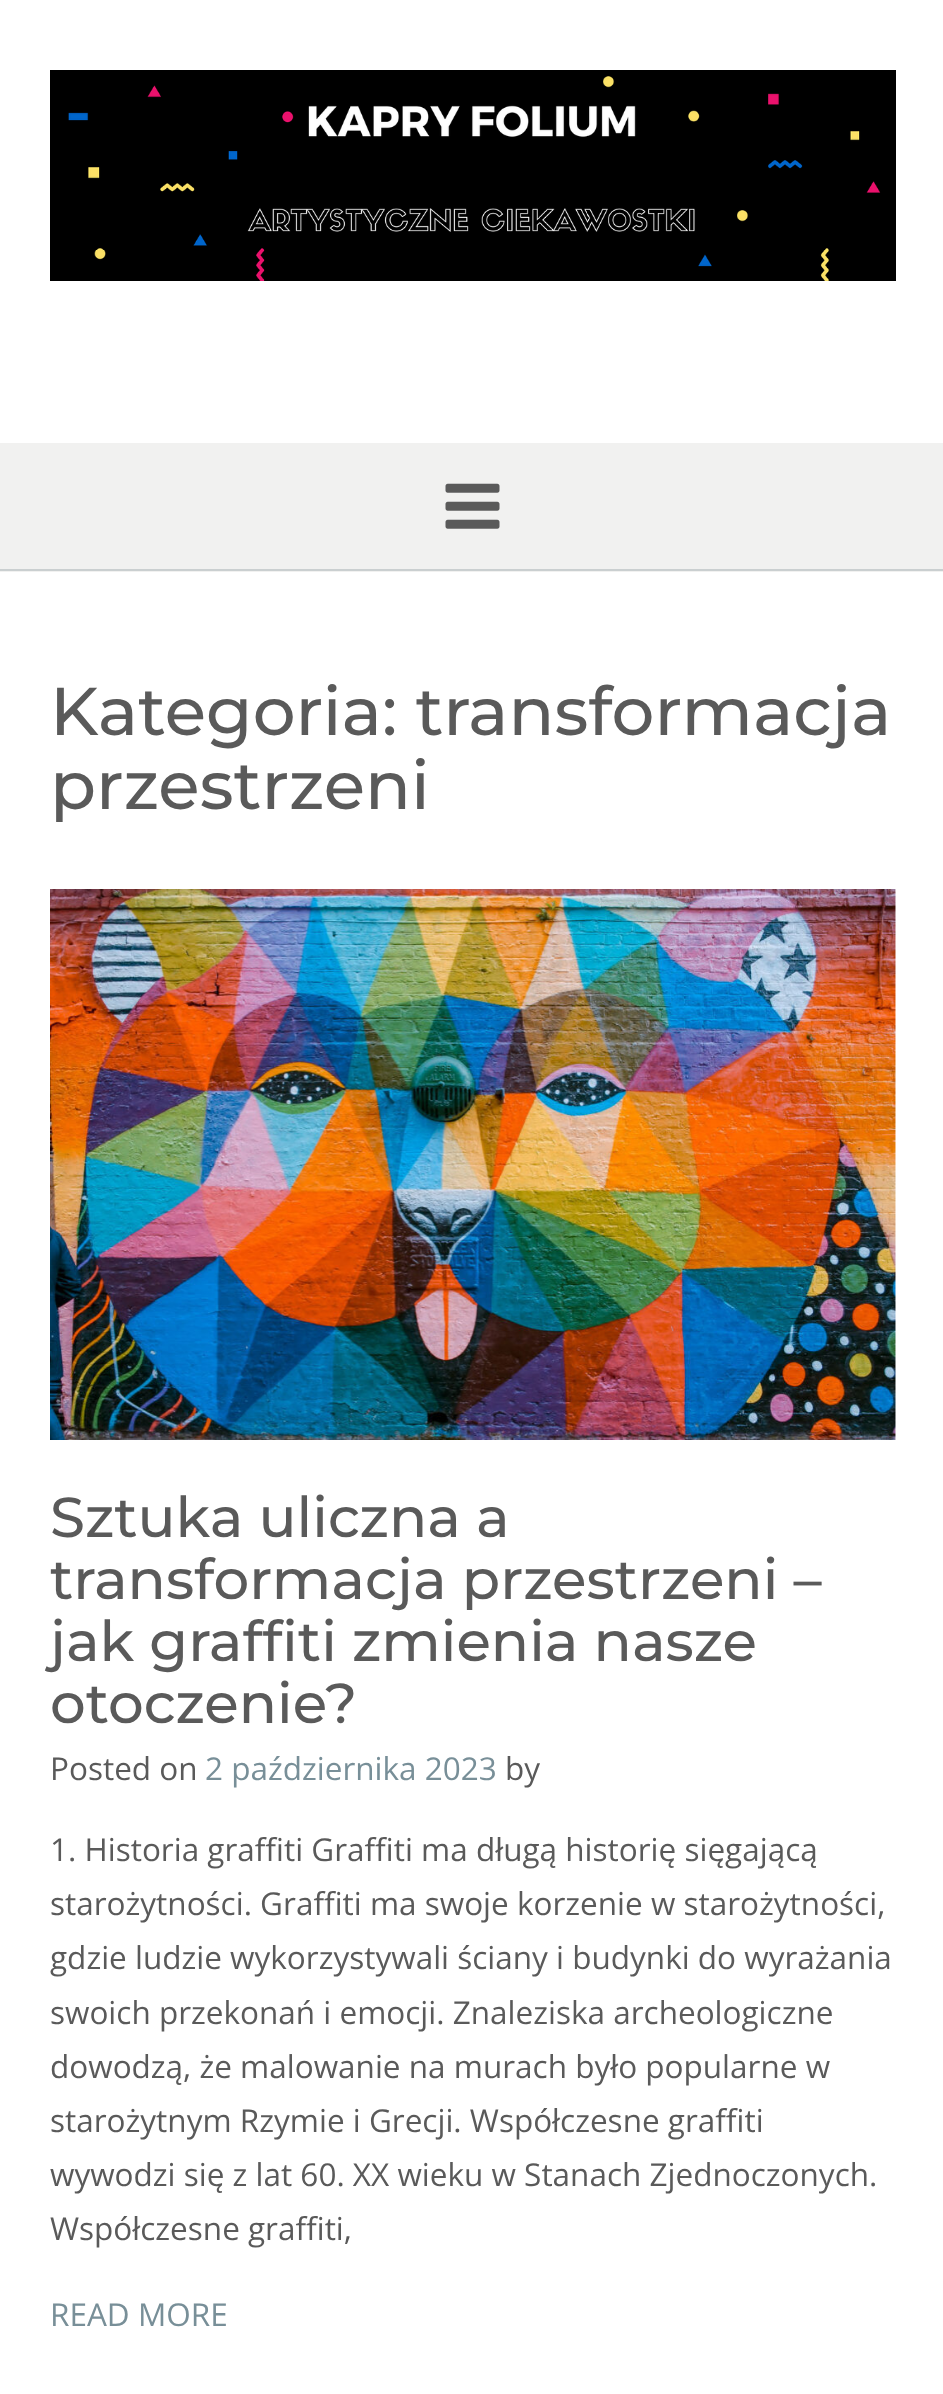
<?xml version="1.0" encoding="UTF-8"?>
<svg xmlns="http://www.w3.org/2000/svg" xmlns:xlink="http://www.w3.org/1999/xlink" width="943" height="2394">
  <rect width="100%" height="100%" fill="#ffffff" />
  <image x="50" y="70" width="846" height="211" xlink:href="image1.png" />
  <rect y="443" width="943" height="129" fill="#f1f1f0" />
  <rect y="569" width="943" height="2" fill="#cacfd0" />
  <image x="445" y="483" width="55" height="46" xlink:href="image2.png" />
  <image x="50" y="889" width="846" height="551" xlink:href="image3.png" />
  <text x="50" y="735" style="font-family: Montserrat; font-size: 67.5px; font-weight: 500; fill: #5a5a5a">Kategoria: transformacja</text>
  <text x="50" y="809" style="font-family: Montserrat; font-size: 67.5px; font-weight: 500; fill: #5a5a5a">przestrzeni</text>
  <text x="50" y="1537" style="font-family: Montserrat; font-size: 56.25px; font-weight: 500; fill: #5a5a5a">Sztuka uliczna a</text>
  <text x="50" y="1599" style="font-family: Montserrat; font-size: 56.25px; font-weight: 500; fill: #5a5a5a">transformacja przestrzeni –</text>
  <text x="50" y="1661" style="font-family: Montserrat; font-size: 56.25px; font-weight: 500; fill: #5a5a5a">jak graffiti zmienia nasze</text>
  <text x="50" y="1723" style="font-family: Montserrat; font-size: 56.25px; font-weight: 500; fill: #5a5a5a">otoczenie?</text>
  <text x="50" y="1780" style="font-family: Open Sans; font-size: 31.5px; fill: #5a5a5a">Posted on</text>
  <text x="205" y="1780" style="font-family: Open Sans; font-size: 31.5px; fill: #788f98">2 października 2023</text>
  <text x="505" y="1780" style="font-family: Open Sans; font-size: 31.5px; fill: #5a5a5a">by</text>
  <text x="50" y="1861" style="font-family: Open Sans; font-size: 31.5px; fill: #5a5a5a">1. Historia graffiti Graffiti ma długą historię sięgającą</text>
  <text x="50" y="1915" style="font-family: Open Sans; font-size: 31.5px; fill: #5a5a5a">starożytności. Graffiti ma swoje korzenie w starożytności,</text>
  <text x="50" y="1969" style="font-family: Open Sans; font-size: 31.5px; fill: #5a5a5a">gdzie ludzie wykorzystywali ściany i budynki do wyrażania</text>
  <text x="50" y="2024" style="font-family: Open Sans; font-size: 31.5px; fill: #5a5a5a">swoich przekonań i emocji. Znaleziska archeologiczne</text>
  <text x="50" y="2078" style="font-family: Open Sans; font-size: 31.5px; fill: #5a5a5a">dowodzą, że malowanie na murach było popularne w</text>
  <text x="50" y="2132" style="font-family: Open Sans; font-size: 31.5px; fill: #5a5a5a">starożytnym Rzymie i Grecji. Współczesne graffiti</text>
  <text x="50" y="2186" style="font-family: Open Sans; font-size: 31.5px; fill: #5a5a5a">wywodzi się z lat 60. XX wieku w Stanach Zjednoczonych.</text>
  <text x="50" y="2240" style="font-family: Open Sans; font-size: 31.5px; fill: #5a5a5a">Współczesne graffiti,</text>
  <text x="50" y="2326" style="font-family: Open Sans; font-size: 31.5px; fill: #788f98">READ MORE</text>
</svg>
